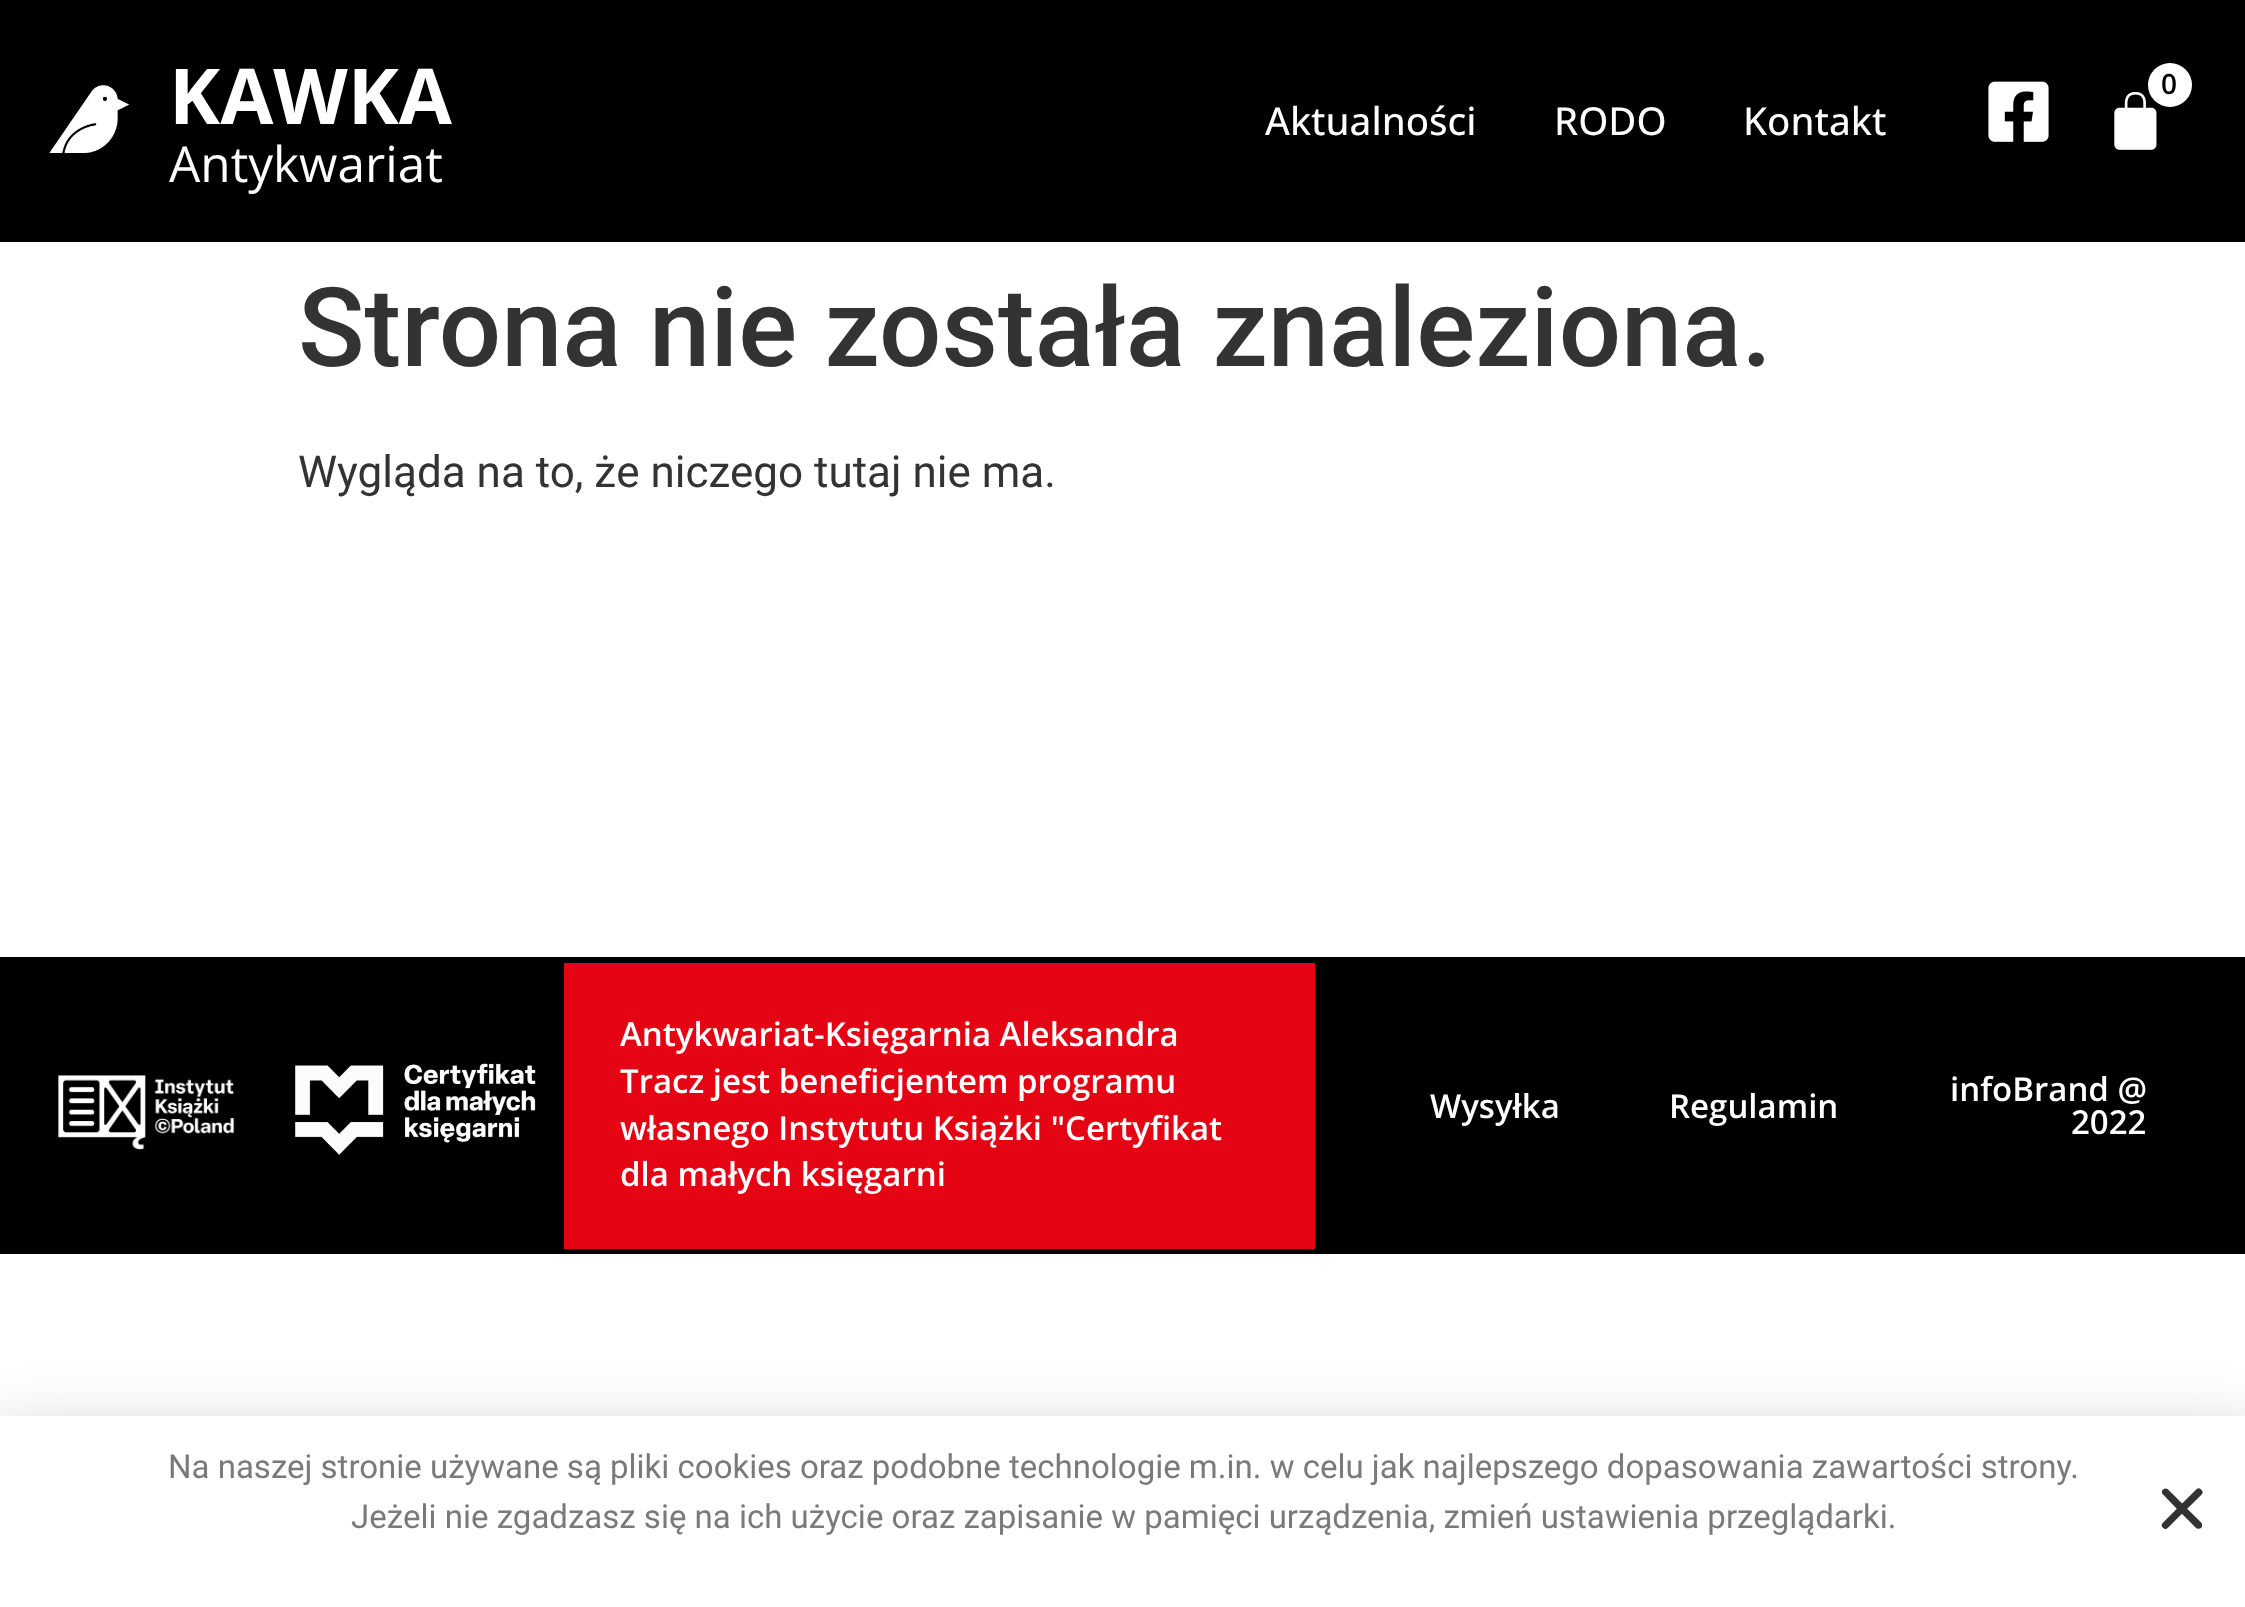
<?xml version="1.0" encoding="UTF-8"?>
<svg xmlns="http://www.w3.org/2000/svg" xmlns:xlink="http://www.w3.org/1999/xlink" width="2245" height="1607">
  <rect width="100%" height="100%" fill="#ffffff" />
  <rect width="2245" height="242" fill="#000000" />
  <image x="49" y="85" width="81" height="68" xlink:href="image1.png" />
  <image x="1988" y="81" width="61" height="61" xlink:href="image2.png" />
  <image x="2114" y="92" width="43" height="58" xlink:href="image3.png" />
  <circle cx="2170" cy="85" r="22" fill="#ffffff" />
  <rect y="957" width="2245" height="297" fill="#000000" />
  <image x="58" y="1075" width="177" height="75" xlink:href="image4.png" />
  <image x="295" y="1063" width="241" height="92" xlink:href="image5.png" />
  <rect x="564" y="963" width="751" height="286" fill="#e40414" />
  <rect x="-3" y="1430" width="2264" height="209" fill="#000000" fill-opacity="0.2" filter="blur(31.5px)" />
  <rect y="1416" width="2245" height="191" fill="#ffffff" />
  <image x="2161" y="1488" width="42" height="41" xlink:href="image6.png" />
  <text x="169" y="124" style="font-family: Open Sans; font-size: 77px; font-weight: bold; fill: #ffffff">KAWKA</text>
  <text x="169" y="182" style="font-family: Open Sans; font-size: 49.5px; fill: #ffffff">Antykwariat</text>
  <text x="1265" y="135" style="font-family: Open Sans; font-size: 38.5px; font-weight: 500; fill: #ffffff">Aktualności</text>
  <text x="1554" y="135" style="font-family: Open Sans; font-size: 38.5px; font-weight: 500; fill: #ffffff">RODO</text>
  <text x="1743" y="135" style="font-family: Open Sans; font-size: 38.5px; font-weight: 500; fill: #ffffff">Kontakt</text>
  <text x="2161" y="94" style="font-family: Open Sans; font-size: 28px; font-weight: 600; fill: #000000">0</text>
  <text x="298" y="366" style="font-family: Roboto; font-size: 110px; font-weight: 500; fill: #333333">Strona nie została znaleziona.</text>
  <text x="298" y="487" style="font-family: Roboto; font-size: 44px; fill: #333333">Wygląda na to, że niczego tutaj nie ma.</text>
  <text x="620" y="1046" style="font-family: Open Sans; font-size: 33px; font-weight: 600; fill: #ffffff">Antykwariat-Księgarnia Aleksandra</text>
  <text x="620" y="1093" style="font-family: Open Sans; font-size: 33px; font-weight: 600; fill: #ffffff">Tracz jest beneficjentem programu</text>
  <text x="620" y="1140" style="font-family: Open Sans; font-size: 33px; font-weight: 600; fill: #ffffff">własnego Instytutu Książki "Certyfikat</text>
  <text x="620" y="1186" style="font-family: Open Sans; font-size: 33px; font-weight: 600; fill: #ffffff">dla małych księgarni</text>
  <text x="1430" y="1118" style="font-family: Open Sans; font-size: 33px; font-weight: 600; fill: #ffffff">Wysyłka</text>
  <text x="1669" y="1118" style="font-family: Open Sans; font-size: 33px; font-weight: 600; fill: #ffffff">Regulamin</text>
  <text x="1950" y="1101" style="font-family: Open Sans; font-size: 33px; font-weight: 600; fill: #ffffff">infoBrand @</text>
  <text x="2071" y="1134" style="font-family: Open Sans; font-size: 33px; font-weight: 600; fill: #ffffff">2022</text>
  <text x="168" y="1478" style="font-family: Roboto; font-size: 33px; fill: #7a7a7a">Na naszej stronie używane są pliki cookies oraz podobne technologie m.in. w celu jak najlepszego dopasowania zawartości strony.</text>
  <text x="351" y="1528" style="font-family: Roboto; font-size: 33px; fill: #7a7a7a">Jeżeli nie zgadzasz się na ich użycie oraz zapisanie w pamięci urządzenia, zmień ustawienia przeglądarki.</text>
</svg>
